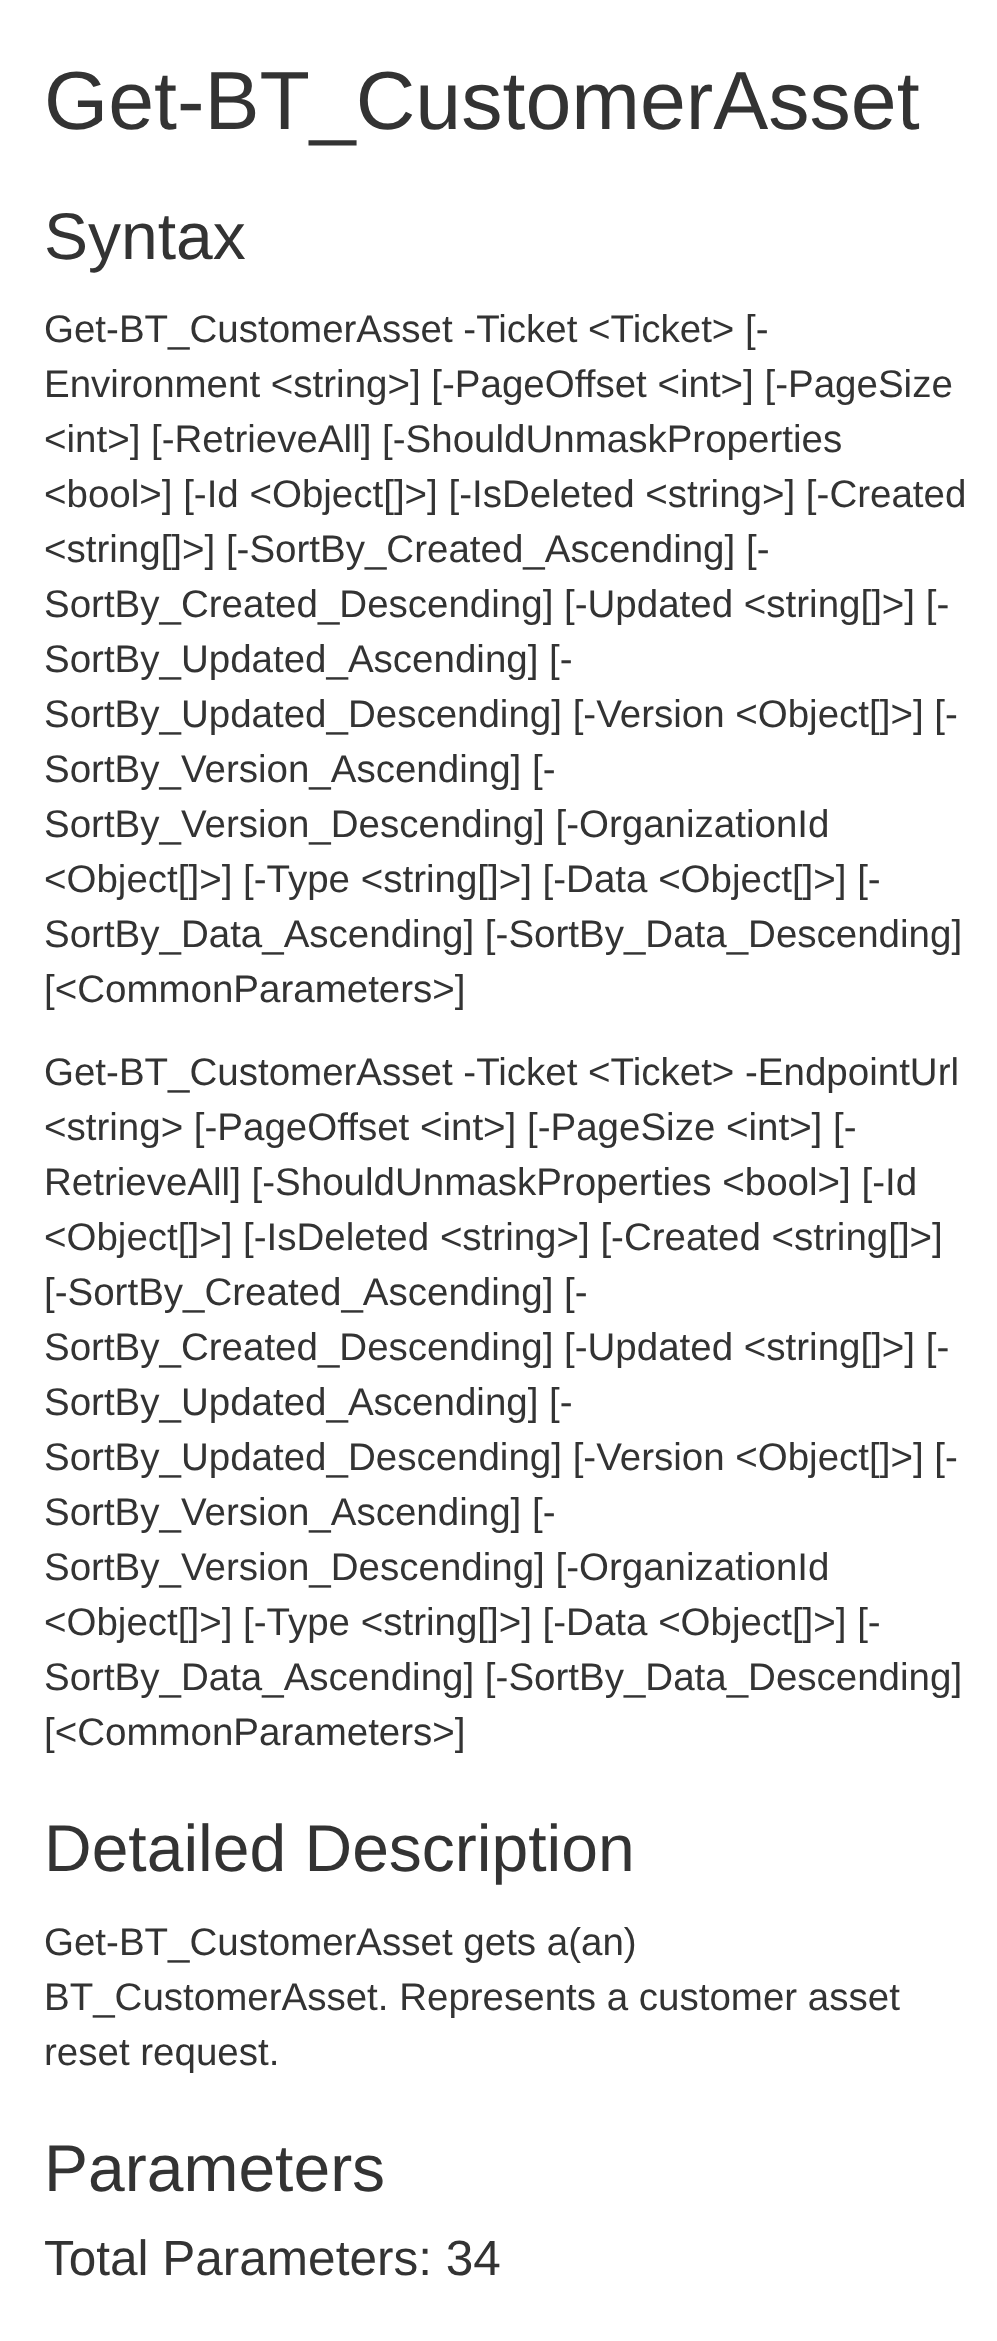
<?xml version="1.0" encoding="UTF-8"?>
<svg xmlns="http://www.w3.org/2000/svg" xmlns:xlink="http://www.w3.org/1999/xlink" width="997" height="2341">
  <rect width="100%" height="100%" fill="#ffffff" />
  <text x="44" y="129" style="font-family: Liberation Sans; font-size: 82.5px; fill: #333333">Get-BT_CustomerAsset</text>
  <text x="44" y="259" style="font-family: Liberation Sans; font-size: 66px; fill: #333333">Syntax</text>
  <text x="44" y="342" style="font-family: Liberation Sans; font-size: 38.5px; fill: #333333">Get-BT_CustomerAsset -Ticket &lt;Ticket&gt; [-</text>
  <text x="44" y="397" style="font-family: Liberation Sans; font-size: 38.5px; fill: #333333">Environment &lt;string&gt;] [-PageOffset &lt;int&gt;] [-PageSize</text>
  <text x="44" y="452" style="font-family: Liberation Sans; font-size: 38.5px; fill: #333333">&lt;int&gt;] [-RetrieveAll] [-ShouldUnmaskProperties</text>
  <text x="44" y="507" style="font-family: Liberation Sans; font-size: 38.5px; fill: #333333">&lt;bool&gt;] [-Id &lt;Object[]&gt;] [-IsDeleted &lt;string&gt;] [-Created</text>
  <text x="44" y="562" style="font-family: Liberation Sans; font-size: 38.5px; fill: #333333">&lt;string[]&gt;] [-SortBy_Created_Ascending] [-</text>
  <text x="44" y="617" style="font-family: Liberation Sans; font-size: 38.5px; fill: #333333">SortBy_Created_Descending] [-Updated &lt;string[]&gt;] [-</text>
  <text x="44" y="672" style="font-family: Liberation Sans; font-size: 38.5px; fill: #333333">SortBy_Updated_Ascending] [-</text>
  <text x="44" y="727" style="font-family: Liberation Sans; font-size: 38.5px; fill: #333333">SortBy_Updated_Descending] [-Version &lt;Object[]&gt;] [-</text>
  <text x="44" y="782" style="font-family: Liberation Sans; font-size: 38.5px; fill: #333333">SortBy_Version_Ascending] [-</text>
  <text x="44" y="837" style="font-family: Liberation Sans; font-size: 38.5px; fill: #333333">SortBy_Version_Descending] [-OrganizationId</text>
  <text x="44" y="892" style="font-family: Liberation Sans; font-size: 38.5px; fill: #333333">&lt;Object[]&gt;] [-Type &lt;string[]&gt;] [-Data &lt;Object[]&gt;] [-</text>
  <text x="44" y="947" style="font-family: Liberation Sans; font-size: 38.5px; fill: #333333">SortBy_Data_Ascending] [-SortBy_Data_Descending]</text>
  <text x="44" y="1002" style="font-family: Liberation Sans; font-size: 38.5px; fill: #333333">[&lt;CommonParameters&gt;]</text>
  <text x="44" y="1085" style="font-family: Liberation Sans; font-size: 38.5px; fill: #333333">Get-BT_CustomerAsset -Ticket &lt;Ticket&gt; -EndpointUrl</text>
  <text x="44" y="1140" style="font-family: Liberation Sans; font-size: 38.5px; fill: #333333">&lt;string&gt; [-PageOffset &lt;int&gt;] [-PageSize &lt;int&gt;] [-</text>
  <text x="44" y="1195" style="font-family: Liberation Sans; font-size: 38.5px; fill: #333333">RetrieveAll] [-ShouldUnmaskProperties &lt;bool&gt;] [-Id</text>
  <text x="44" y="1250" style="font-family: Liberation Sans; font-size: 38.5px; fill: #333333">&lt;Object[]&gt;] [-IsDeleted &lt;string&gt;] [-Created &lt;string[]&gt;]</text>
  <text x="44" y="1305" style="font-family: Liberation Sans; font-size: 38.5px; fill: #333333">[-SortBy_Created_Ascending] [-</text>
  <text x="44" y="1360" style="font-family: Liberation Sans; font-size: 38.5px; fill: #333333">SortBy_Created_Descending] [-Updated &lt;string[]&gt;] [-</text>
  <text x="44" y="1415" style="font-family: Liberation Sans; font-size: 38.5px; fill: #333333">SortBy_Updated_Ascending] [-</text>
  <text x="44" y="1470" style="font-family: Liberation Sans; font-size: 38.5px; fill: #333333">SortBy_Updated_Descending] [-Version &lt;Object[]&gt;] [-</text>
  <text x="44" y="1525" style="font-family: Liberation Sans; font-size: 38.5px; fill: #333333">SortBy_Version_Ascending] [-</text>
  <text x="44" y="1580" style="font-family: Liberation Sans; font-size: 38.5px; fill: #333333">SortBy_Version_Descending] [-OrganizationId</text>
  <text x="44" y="1635" style="font-family: Liberation Sans; font-size: 38.5px; fill: #333333">&lt;Object[]&gt;] [-Type &lt;string[]&gt;] [-Data &lt;Object[]&gt;] [-</text>
  <text x="44" y="1690" style="font-family: Liberation Sans; font-size: 38.5px; fill: #333333">SortBy_Data_Ascending] [-SortBy_Data_Descending]</text>
  <text x="44" y="1745" style="font-family: Liberation Sans; font-size: 38.5px; fill: #333333">[&lt;CommonParameters&gt;]</text>
  <text x="44" y="1871" style="font-family: Liberation Sans; font-size: 66px; fill: #333333">Detailed Description</text>
  <text x="44" y="1955" style="font-family: Liberation Sans; font-size: 38.5px; fill: #333333">Get-BT_CustomerAsset gets a(an)</text>
  <text x="44" y="2010" style="font-family: Liberation Sans; font-size: 38.5px; fill: #333333">BT_CustomerAsset. Represents a customer asset</text>
  <text x="44" y="2065" style="font-family: Liberation Sans; font-size: 38.5px; fill: #333333">reset request.</text>
  <text x="44" y="2191" style="font-family: Liberation Sans; font-size: 66px; fill: #333333">Parameters</text>
  <text x="44" y="2275" style="font-family: Liberation Sans; font-size: 49.5px; fill: #333333">Total Parameters: 34</text>
</svg>
